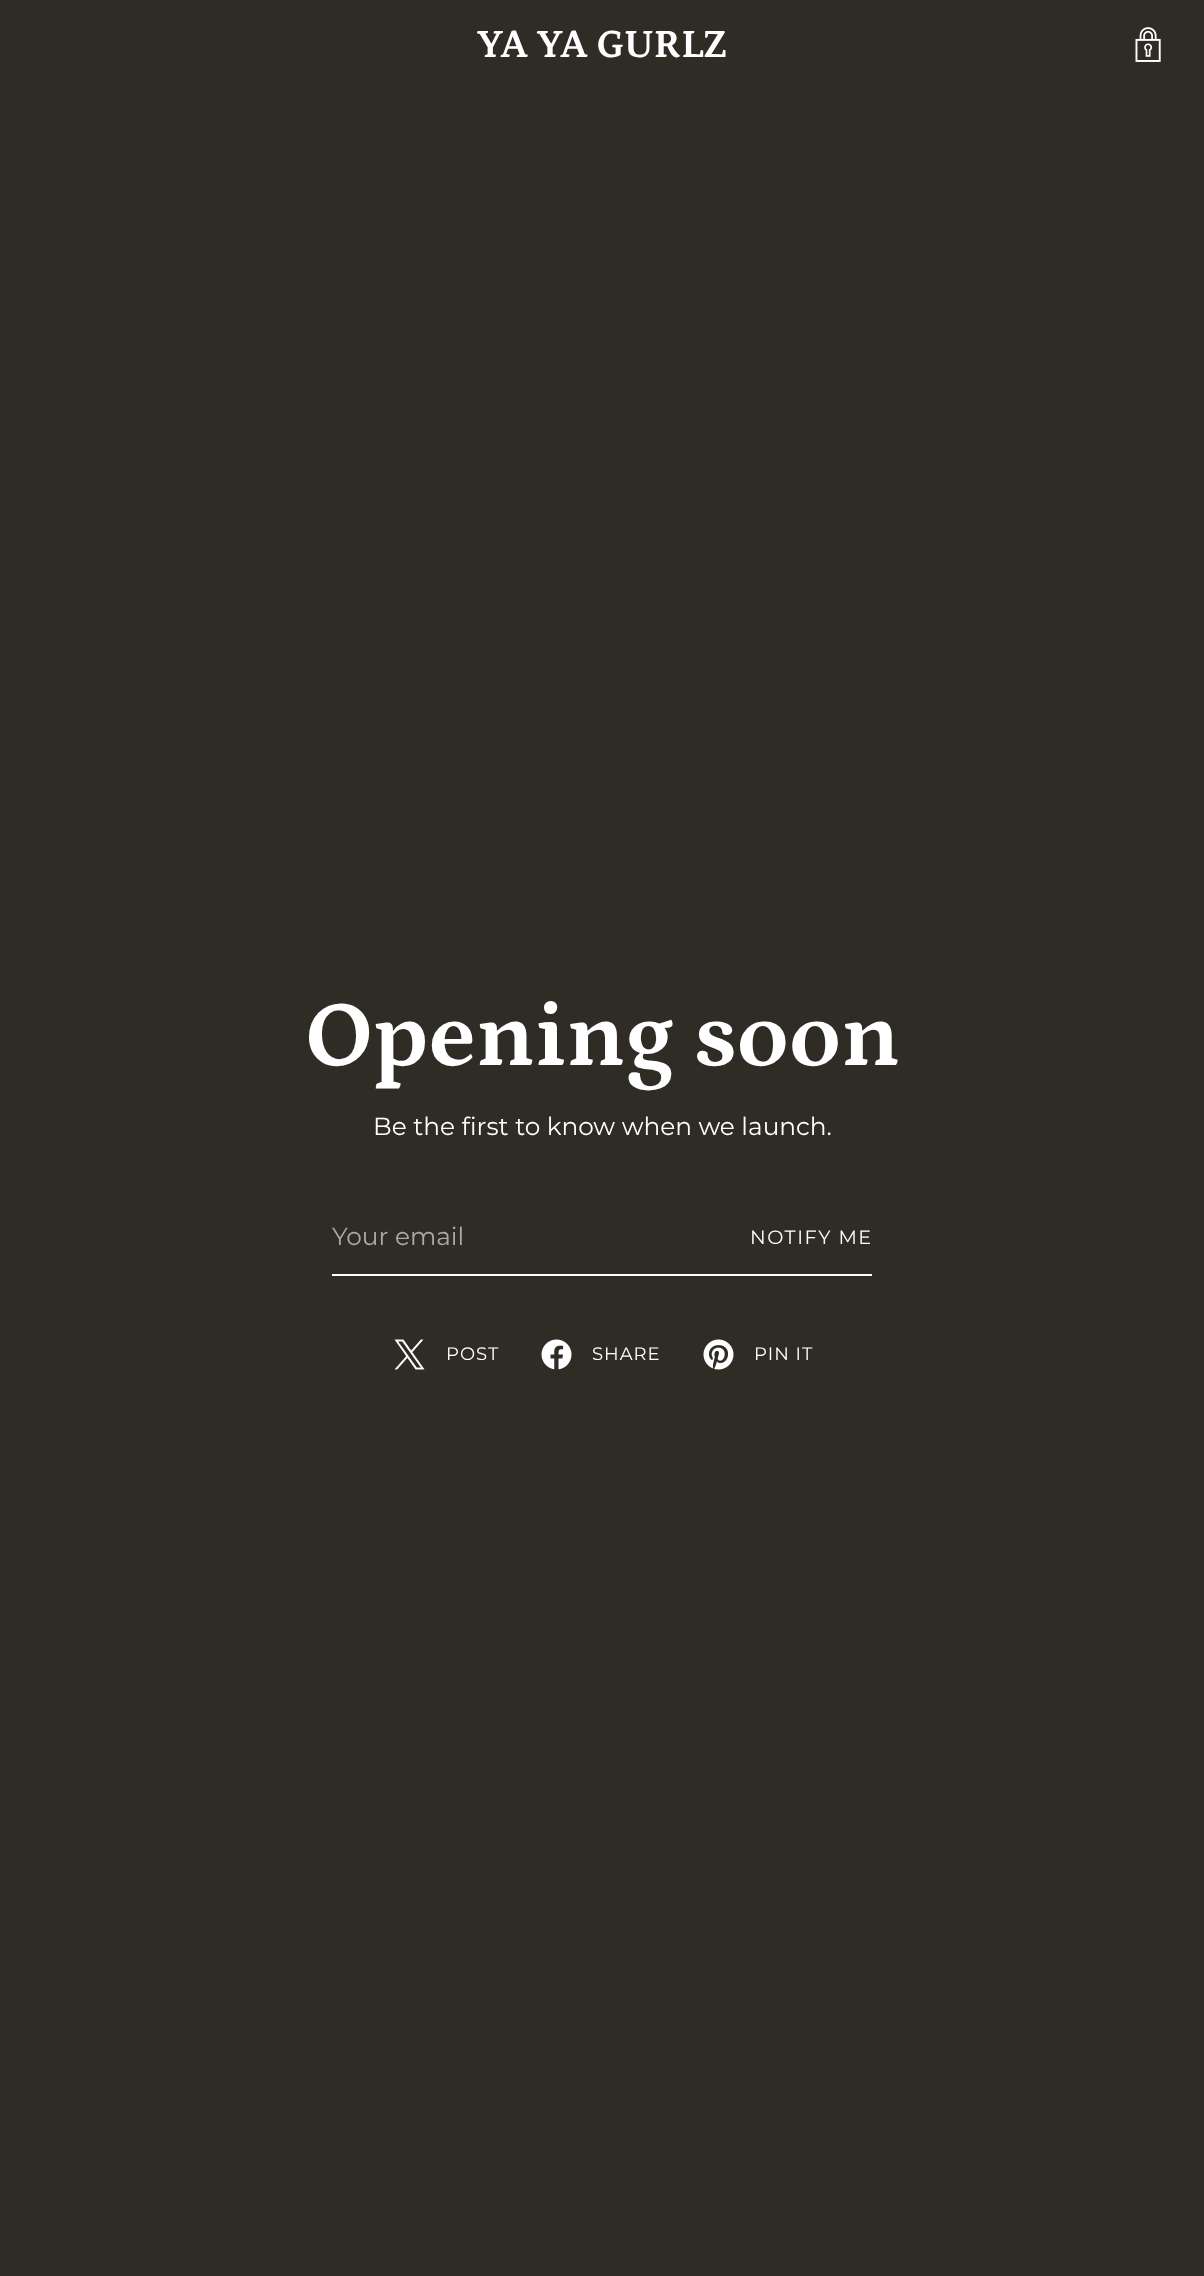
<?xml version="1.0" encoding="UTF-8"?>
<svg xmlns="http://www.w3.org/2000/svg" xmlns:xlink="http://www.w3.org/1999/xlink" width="1204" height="2276">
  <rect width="100%" height="100%" fill="#2f2b25" />
  <image x="1135" y="27" width="26" height="35" xlink:href="image1.png" />
  <rect x="332" y="1274" width="540" height="2" fill="#ffffff" />
  <image x="394" y="1339" width="31" height="31" xlink:href="image2.png" />
  <image x="541" y="1339" width="31" height="31" xlink:href="image3.png" />
  <image x="703" y="1339" width="31" height="31" xlink:href="image4.png" />
  <text x="477" y="57" style="font-family: Petrona; font-size: 40.5px; font-weight: bold; fill: #ffffff">YA YA GURLZ</text>
  <text x="305" y="1065" style="font-family: Petrona; font-size: 94px; font-weight: bold; fill: #ffffff">Opening soon</text>
  <text x="373" y="1135" style="font-family: Montserrat; font-size: 24.8px; fill: #ffffff">Be the first to know when we launch.</text>
  <text x="332" y="1245" style="font-family: Montserrat; font-size: 24.8px; fill: #acaaa8">Your email</text>
  <text x="750" y="1244" style="font-family: Montserrat; font-size: 19.25px; letter-spacing: 1.5px; fill: #ffffff">NOTIFY ME</text>
  <text x="446" y="1360" style="font-family: Montserrat; font-size: 18px; letter-spacing: 1px; fill: #ffffff">POST</text>
  <text x="592" y="1360" style="font-family: Montserrat; font-size: 18px; letter-spacing: 1px; fill: #ffffff">SHARE</text>
  <text x="754" y="1360" style="font-family: Montserrat; font-size: 18px; letter-spacing: 1px; fill: #ffffff">PIN IT</text>
</svg>
